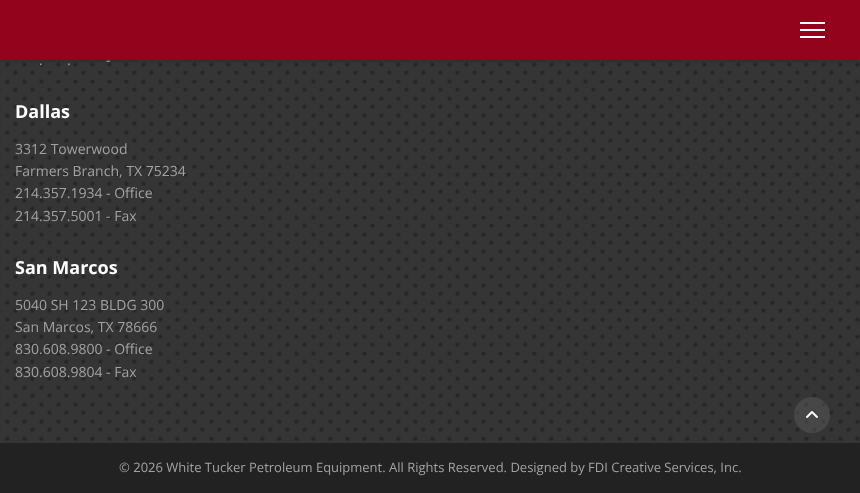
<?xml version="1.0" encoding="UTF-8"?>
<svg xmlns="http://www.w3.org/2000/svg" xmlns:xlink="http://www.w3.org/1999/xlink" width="860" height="493">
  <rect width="100%" height="100%" fill="#ffffff" />
  <image x="0" y="60" width="860" height="383" xlink:href="image1.png" />
  <rect y="2" width="860" height="60" fill="#000000" fill-opacity="0.1" filter="blur(1.5px)" />
  <rect width="860" height="60" fill="#93031b" />
  <rect x="800" y="22" width="25" height="2" fill="#ffffff" />
  <rect x="800" y="29" width="25" height="2" fill="#ffffff" />
  <rect x="800" y="36" width="25" height="2" fill="#ffffff" />
  <rect y="443" width="860" height="50" fill="#222222" />
  <circle cx="812" cy="415" r="18" fill="#646464" fill-opacity="0.4" />
  <image x="806" y="411" width="12" height="7" xlink:href="image2.png" />
  <text x="106" y="65" style="font-family: Open Sans; font-size: 14px; fill: #a2a2a2">-</text>
  <text x="39" y="65" style="font-family: Open Sans; font-size: 14px; fill: #a2a2a2">.</text>
  <text x="67" y="65" style="font-family: Open Sans; font-size: 14px; fill: #a2a2a2">.</text>
  <text x="15" y="118" style="font-family: Open Sans; font-size: 18px; font-weight: bold; fill: #ffffff">Dallas</text>
  <text x="15" y="154" style="font-family: Open Sans; font-size: 14px; fill: #a2a2a2">3312 Towerwood</text>
  <text x="15" y="176" style="font-family: Open Sans; font-size: 14px; fill: #a2a2a2">Farmers Branch, TX 75234</text>
  <text x="15" y="198" style="font-family: Open Sans; font-size: 14px; fill: #a2a2a2">214.357.1934 - Office</text>
  <text x="15" y="221" style="font-family: Open Sans; font-size: 14px; fill: #a2a2a2">214.357.5001 - Fax</text>
  <text x="15" y="274" style="font-family: Open Sans; font-size: 18px; font-weight: bold; fill: #ffffff">San Marcos</text>
  <text x="15" y="310" style="font-family: Open Sans; font-size: 14px; fill: #a2a2a2">5040 SH 123 BLDG 300</text>
  <text x="15" y="332" style="font-family: Open Sans; font-size: 14px; fill: #a2a2a2">San Marcos, TX 78666</text>
  <text x="15" y="354" style="font-family: Open Sans; font-size: 14px; fill: #a2a2a2">830.608.9800 - Office</text>
  <text x="15" y="377" style="font-family: Open Sans; font-size: 14px; fill: #a2a2a2">830.608.9804 - Fax</text>
  <text x="119" y="472" style="font-family: Open Sans; font-size: 13px; fill: #a2a2a2">© 2026 White Tucker Petroleum Equipment. All Rights Reserved. Designed by FDI Creative Services, Inc.</text>
</svg>
